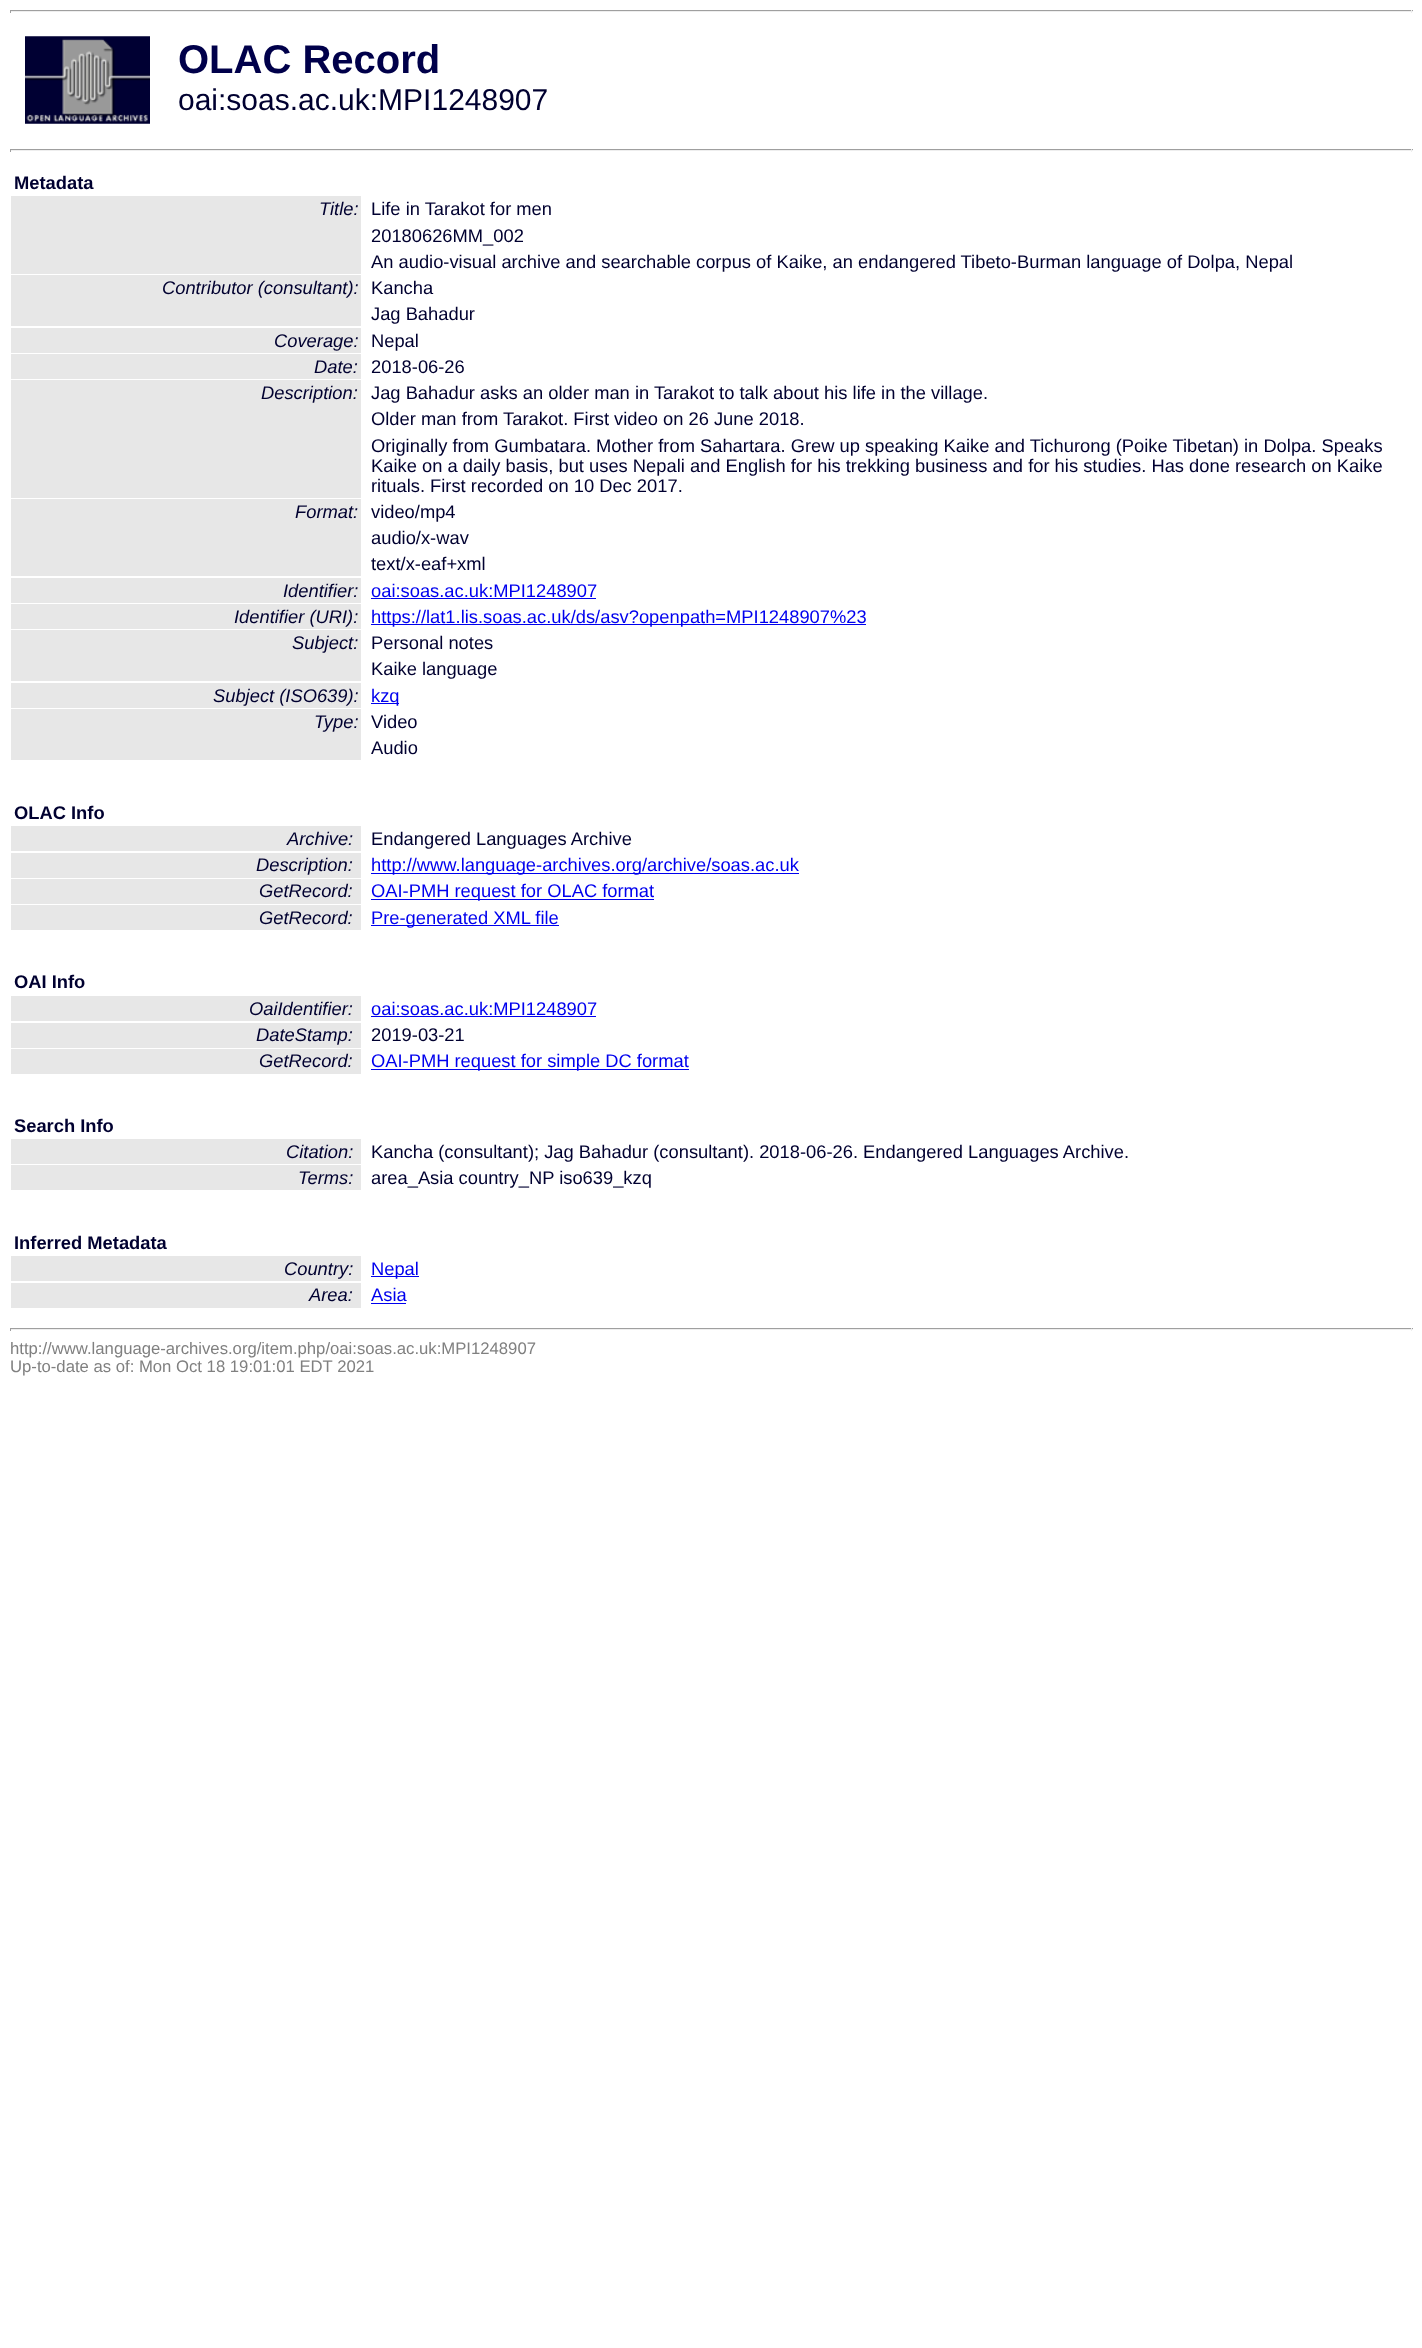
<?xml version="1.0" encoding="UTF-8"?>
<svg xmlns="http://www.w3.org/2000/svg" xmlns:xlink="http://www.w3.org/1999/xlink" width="1422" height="2348">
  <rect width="100%" height="100%" fill="#ffffff" />
  <rect x="10" y="10" width="1403" height="1" fill="#9f9f9f" />
  <rect x="1411" y="10" width="1" height="3" fill="#eeeeee" />
  <rect x="10" y="11" width="1403" height="1" fill="#eeeeee" />
  <rect x="10" y="10" width="1" height="3" fill="#9f9f9f" />
  <image x="25" y="36" width="125" height="88" xlink:href="image1.png" />
  <rect x="10" y="149" width="1403" height="1" fill="#9f9f9f" />
  <rect x="1411" y="149" width="1" height="3" fill="#eeeeee" />
  <rect x="10" y="150" width="1403" height="1" fill="#eeeeee" />
  <rect x="10" y="149" width="1" height="3" fill="#9f9f9f" />
  <rect x="11" y="196" width="350" height="78" fill="#e7e7e7" />
  <rect x="11" y="275" width="350" height="51" fill="#e7e7e7" />
  <rect x="11" y="328" width="350" height="25" fill="#e7e7e7" />
  <rect x="11" y="354" width="350" height="25" fill="#e7e7e7" />
  <rect x="11" y="380" width="350" height="118" fill="#e7e7e7" />
  <rect x="11" y="499" width="350" height="77" fill="#e7e7e7" />
  <rect x="11" y="578" width="350" height="25" fill="#e7e7e7" />
  <rect x="371" y="598" width="225" height="1" fill="#0000ee" />
  <rect x="11" y="604" width="350" height="25" fill="#e7e7e7" />
  <rect x="371" y="624" width="495" height="1" fill="#0000ee" />
  <rect x="11" y="630" width="350" height="51" fill="#e7e7e7" />
  <rect x="11" y="683" width="350" height="25" fill="#e7e7e7" />
  <rect x="371" y="703" width="28" height="1" fill="#0000ee" />
  <rect x="11" y="709" width="350" height="51" fill="#e7e7e7" />
  <rect x="11" y="826" width="350" height="25" fill="#e7e7e7" />
  <rect x="11" y="853" width="350" height="25" fill="#e7e7e7" />
  <rect x="371" y="873" width="428" height="1" fill="#0000ee" />
  <rect x="11" y="879" width="350" height="25" fill="#e7e7e7" />
  <rect x="371" y="899" width="283" height="1" fill="#0000ee" />
  <rect x="11" y="905" width="350" height="25" fill="#e7e7e7" />
  <rect x="371" y="925" width="188" height="1" fill="#0000ee" />
  <rect x="11" y="996" width="350" height="25" fill="#e7e7e7" />
  <rect x="371" y="1016" width="225" height="1" fill="#0000ee" />
  <rect x="11" y="1023" width="350" height="25" fill="#e7e7e7" />
  <rect x="11" y="1049" width="350" height="25" fill="#e7e7e7" />
  <rect x="371" y="1069" width="318" height="1" fill="#0000ee" />
  <rect x="11" y="1139" width="350" height="25" fill="#e7e7e7" />
  <rect x="11" y="1165" width="350" height="25" fill="#e7e7e7" />
  <rect x="11" y="1256" width="350" height="25" fill="#e7e7e7" />
  <rect x="371" y="1276" width="48" height="1" fill="#0000ee" />
  <rect x="11" y="1283" width="350" height="25" fill="#e7e7e7" />
  <rect x="371" y="1303" width="35" height="1" fill="#0000ee" />
  <rect x="10" y="1328" width="1403" height="1" fill="#9f9f9f" />
  <rect x="1411" y="1328" width="1" height="3" fill="#eeeeee" />
  <rect x="10" y="1329" width="1403" height="1" fill="#eeeeee" />
  <rect x="10" y="1328" width="1" height="3" fill="#9f9f9f" />
  <text x="178" y="73" style="font-family: Liberation Sans; font-size: 40px; font-weight: bold; fill: #00004a">OLAC Record</text>
  <text x="178" y="110" style="font-family: Liberation Sans; font-size: 30px; fill: #000030">oai:soas.ac.uk:MPI1248907</text>
  <text x="14" y="189" style="font-family: Liberation Sans; font-size: 18.33px; font-weight: bold; fill: #000030">Metadata</text>
  <text x="319" y="215" style="font-family: Liberation Sans; font-size: 18.33px; font-style: italic; fill: #000030">Title:</text>
  <text x="371" y="215" style="font-family: Liberation Sans; font-size: 18.33px; fill: #000030">Life in Tarakot for men</text>
  <text x="371" y="242" style="font-family: Liberation Sans; font-size: 18.33px; fill: #000030">20180626MM_002</text>
  <text x="371" y="268" style="font-family: Liberation Sans; font-size: 18.33px; fill: #000030">An audio-visual archive and searchable corpus of Kaike, an endangered Tibeto-Burman language of Dolpa, Nepal</text>
  <text x="162" y="294" style="font-family: Liberation Sans; font-size: 18.33px; font-style: italic; fill: #000030">Contributor (consultant):</text>
  <text x="371" y="294" style="font-family: Liberation Sans; font-size: 18.33px; fill: #000030">Kancha</text>
  <text x="371" y="320" style="font-family: Liberation Sans; font-size: 18.33px; fill: #000030">Jag Bahadur</text>
  <text x="274" y="347" style="font-family: Liberation Sans; font-size: 18.33px; font-style: italic; fill: #000030">Coverage:</text>
  <text x="371" y="347" style="font-family: Liberation Sans; font-size: 18.33px; fill: #000030">Nepal</text>
  <text x="314" y="373" style="font-family: Liberation Sans; font-size: 18.33px; font-style: italic; fill: #000030">Date:</text>
  <text x="371" y="373" style="font-family: Liberation Sans; font-size: 18.33px; fill: #000030">2018-06-26</text>
  <text x="261" y="399" style="font-family: Liberation Sans; font-size: 18.33px; font-style: italic; fill: #000030">Description:</text>
  <text x="371" y="399" style="font-family: Liberation Sans; font-size: 18.33px; fill: #000030">Jag Bahadur asks an older man in Tarakot to talk about his life in the village.</text>
  <text x="371" y="425" style="font-family: Liberation Sans; font-size: 18.33px; fill: #000030">Older man from Tarakot. First video on 26 June 2018.</text>
  <text x="371" y="452" style="font-family: Liberation Sans; font-size: 18.33px; fill: #000030">Originally from Gumbatara. Mother from Sahartara. Grew up speaking Kaike and Tichurong (Poike Tibetan) in Dolpa. Speaks</text>
  <text x="371" y="472" style="font-family: Liberation Sans; font-size: 18.33px; fill: #000030">Kaike on a daily basis, but uses Nepali and English for his trekking business and for his studies. Has done research on Kaike</text>
  <text x="371" y="492" style="font-family: Liberation Sans; font-size: 18.33px; fill: #000030">rituals. First recorded on 10 Dec 2017.</text>
  <text x="295" y="518" style="font-family: Liberation Sans; font-size: 18.33px; font-style: italic; fill: #000030">Format:</text>
  <text x="371" y="518" style="font-family: Liberation Sans; font-size: 18.33px; fill: #000030">video/mp4</text>
  <text x="371" y="544" style="font-family: Liberation Sans; font-size: 18.33px; fill: #000030">audio/x-wav</text>
  <text x="371" y="570" style="font-family: Liberation Sans; font-size: 18.33px; fill: #000030">text/x-eaf+xml</text>
  <text x="283" y="597" style="font-family: Liberation Sans; font-size: 18.33px; font-style: italic; fill: #000030">Identifier:</text>
  <text x="371" y="597" style="font-family: Liberation Sans; font-size: 18.33px; fill: #0000ee">oai:soas.ac.uk:MPI1248907</text>
  <text x="234" y="623" style="font-family: Liberation Sans; font-size: 18.33px; font-style: italic; fill: #000030">Identifier (URI):</text>
  <text x="371" y="623" style="font-family: Liberation Sans; font-size: 18.33px; fill: #0000ee">https://lat1.lis.soas.ac.uk/ds/asv?openpath=MPI1248907%23</text>
  <text x="292" y="649" style="font-family: Liberation Sans; font-size: 18.33px; font-style: italic; fill: #000030">Subject:</text>
  <text x="371" y="649" style="font-family: Liberation Sans; font-size: 18.33px; fill: #000030">Personal notes</text>
  <text x="371" y="675" style="font-family: Liberation Sans; font-size: 18.33px; fill: #000030">Kaike language</text>
  <text x="213" y="702" style="font-family: Liberation Sans; font-size: 18.33px; font-style: italic; fill: #000030">Subject (ISO639):</text>
  <text x="371" y="702" style="font-family: Liberation Sans; font-size: 18.33px; fill: #0000ee">kzq</text>
  <text x="314" y="728" style="font-family: Liberation Sans; font-size: 18.33px; font-style: italic; fill: #000030">Type:</text>
  <text x="371" y="728" style="font-family: Liberation Sans; font-size: 18.33px; fill: #000030">Video</text>
  <text x="371" y="754" style="font-family: Liberation Sans; font-size: 18.33px; fill: #000030">Audio</text>
  <text x="14" y="819" style="font-family: Liberation Sans; font-size: 18.33px; font-weight: bold; fill: #000030">OLAC Info</text>
  <text x="287" y="845" style="font-family: Liberation Sans; font-size: 18.33px; font-style: italic; fill: #000030">Archive:</text>
  <text x="371" y="845" style="font-family: Liberation Sans; font-size: 18.33px; fill: #000030">Endangered Languages Archive</text>
  <text x="256" y="871" style="font-family: Liberation Sans; font-size: 18.33px; font-style: italic; fill: #000030">Description:</text>
  <text x="371" y="871" style="font-family: Liberation Sans; font-size: 18.33px; fill: #0000ee">http://www.language-archives.org/archive/soas.ac.uk</text>
  <text x="259" y="897" style="font-family: Liberation Sans; font-size: 18.33px; font-style: italic; fill: #000030">GetRecord:</text>
  <text x="371" y="897" style="font-family: Liberation Sans; font-size: 18.33px; fill: #0000ee">OAI-PMH request for OLAC format</text>
  <text x="259" y="924" style="font-family: Liberation Sans; font-size: 18.33px; font-style: italic; fill: #000030">GetRecord:</text>
  <text x="371" y="924" style="font-family: Liberation Sans; font-size: 18.33px; fill: #0000ee">Pre-generated XML file</text>
  <text x="14" y="988" style="font-family: Liberation Sans; font-size: 18.33px; font-weight: bold; fill: #000030">OAI Info</text>
  <text x="249" y="1015" style="font-family: Liberation Sans; font-size: 18.33px; font-style: italic; fill: #000030">OaiIdentifier:</text>
  <text x="371" y="1015" style="font-family: Liberation Sans; font-size: 18.33px; fill: #0000ee">oai:soas.ac.uk:MPI1248907</text>
  <text x="256" y="1041" style="font-family: Liberation Sans; font-size: 18.33px; font-style: italic; fill: #000030">DateStamp:</text>
  <text x="371" y="1041" style="font-family: Liberation Sans; font-size: 18.33px; fill: #000030">2019-03-21</text>
  <text x="259" y="1067" style="font-family: Liberation Sans; font-size: 18.33px; font-style: italic; fill: #000030">GetRecord:</text>
  <text x="371" y="1067" style="font-family: Liberation Sans; font-size: 18.33px; fill: #0000ee">OAI-PMH request for simple DC format</text>
  <text x="14" y="1132" style="font-family: Liberation Sans; font-size: 18.33px; font-weight: bold; fill: #000030">Search Info</text>
  <text x="286" y="1158" style="font-family: Liberation Sans; font-size: 18.33px; font-style: italic; fill: #000030">Citation:</text>
  <text x="371" y="1158" style="font-family: Liberation Sans; font-size: 18.33px; fill: #000030">Kancha (consultant); Jag Bahadur (consultant). 2018-06-26. Endangered Languages Archive.</text>
  <text x="298" y="1184" style="font-family: Liberation Sans; font-size: 18.33px; font-style: italic; fill: #000030">Terms:</text>
  <text x="371" y="1184" style="font-family: Liberation Sans; font-size: 18.33px; fill: #000030">area_Asia country_NP iso639_kzq</text>
  <text x="14" y="1249" style="font-family: Liberation Sans; font-size: 18.33px; font-weight: bold; fill: #000030">Inferred Metadata</text>
  <text x="284" y="1275" style="font-family: Liberation Sans; font-size: 18.33px; font-style: italic; fill: #000030">Country:</text>
  <text x="371" y="1275" style="font-family: Liberation Sans; font-size: 18.33px; fill: #0000ee">Nepal</text>
  <text x="309" y="1301" style="font-family: Liberation Sans; font-size: 18.33px; font-style: italic; fill: #000030">Area:</text>
  <text x="371" y="1301" style="font-family: Liberation Sans; font-size: 18.33px; fill: #0000ee">Asia</text>
  <text x="10" y="1354" style="font-family: Liberation Sans; font-size: 16.7px; fill: #808080">http://www.language-archives.org/item.php/oai:soas.ac.uk:MPI1248907</text>
  <text x="10" y="1372" style="font-family: Liberation Sans; font-size: 16.7px; fill: #808080">Up-to-date as of: Mon Oct 18 19:01:01 EDT 2021</text>
</svg>
